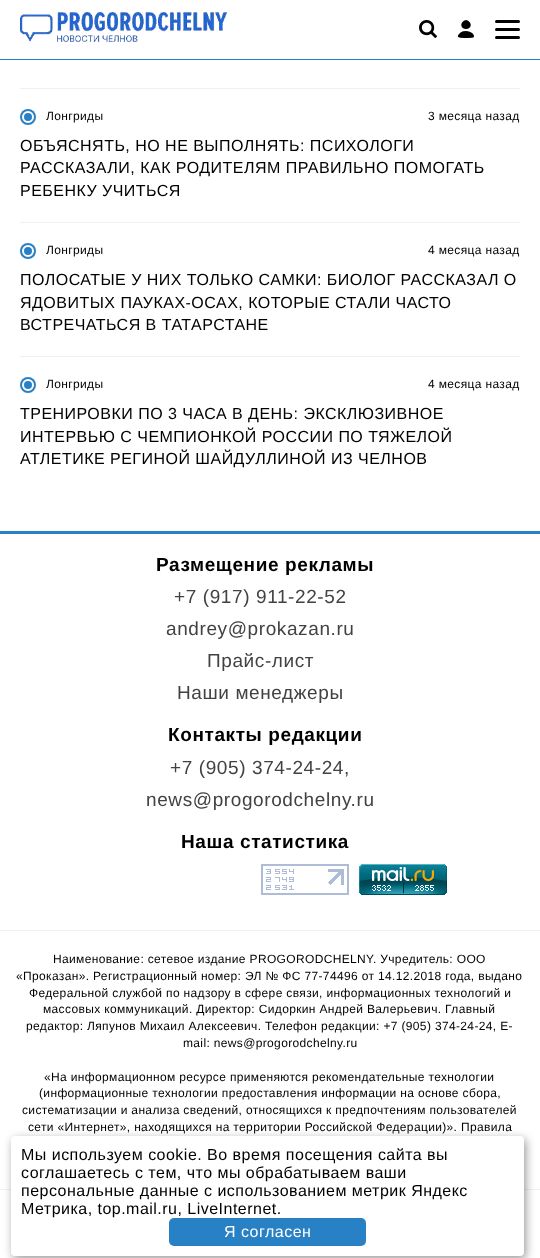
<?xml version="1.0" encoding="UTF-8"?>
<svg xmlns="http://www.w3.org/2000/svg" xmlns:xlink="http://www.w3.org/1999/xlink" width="540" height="1258">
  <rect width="100%" height="100%" fill="#ffffff" />
  <rect y="59" width="540" height="1" fill="#2881c4" />
  <image x="20" y="12" width="207" height="30" xlink:href="image1.png" />
  <image x="419" y="20" width="18" height="18" xlink:href="image2.png" />
  <image x="457" y="20" width="17" height="18" xlink:href="image3.png" />
  <rect x="495" y="20" width="25" height="3" rx="1.5" fill="#000000" />
  <rect x="495" y="28" width="25" height="3" rx="1.5" fill="#000000" />
  <rect x="495" y="36" width="25" height="3" rx="1.5" fill="#000000" />
  <rect x="20" y="88" width="500" height="1" fill="#f1f1f1" />
  <rect x="20" y="222" width="500" height="1" fill="#f1f1f1" />
  <circle cx="28" cy="117" r="8" fill="#2881c4" />
  <circle cx="28" cy="117" r="5" fill="none" stroke="#ffffff" stroke-width="2" />
  <rect x="20" y="356" width="500" height="1" fill="#f1f1f1" />
  <circle cx="28" cy="251" r="8" fill="#2881c4" />
  <circle cx="28" cy="251" r="5" fill="none" stroke="#ffffff" stroke-width="2" />
  <circle cx="28" cy="385" r="8" fill="#2881c4" />
  <circle cx="28" cy="385" r="5" fill="none" stroke="#ffffff" stroke-width="2" />
  <rect y="531" width="540" height="3" fill="#2881c4" />
  <rect y="930" width="540" height="1" fill="#f1f1f1" />
  <image x="261" y="864" width="88" height="31" xlink:href="image4.png" />
  <image x="359" y="864" width="88" height="31" xlink:href="image5.png" />
  <rect y="1189" width="540" height="1" fill="#f1f1f1" />
  <rect x="13" y="1139" width="513" height="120" rx="4" fill="#000000" fill-opacity="0.4" filter="blur(5px)" />
  <rect x="11" y="1136" width="513" height="120" rx="4" fill="#ffffff" />
  <rect x="169" y="1218" width="197" height="28" rx="5" fill="#2881c4" />
  <text x="46" y="120" style="font-family: Liberation Sans; font-size: 12px; letter-spacing: 0.35px; fill: #000000">Лонгриды</text>
  <text x="428" y="120" style="font-family: Liberation Sans; font-size: 12px; letter-spacing: 0.35px; fill: #000000">3 месяца назад</text>
  <text x="20" y="151" style="font-family: Liberation Sans; font-size: 16px; letter-spacing: 0.48px; fill: #000000">ОБЪЯСНЯТЬ, НО НЕ ВЫПОЛНЯТЬ: ПСИХОЛОГИ</text>
  <text x="20" y="173" style="font-family: Liberation Sans; font-size: 16px; letter-spacing: 0.48px; fill: #000000">РАССКАЗАЛИ, КАК РОДИТЕЛЯМ ПРАВИЛЬНО ПОМОГАТЬ</text>
  <text x="20" y="196" style="font-family: Liberation Sans; font-size: 16px; letter-spacing: 0.48px; fill: #000000">РЕБЕНКУ УЧИТЬСЯ</text>
  <text x="46" y="254" style="font-family: Liberation Sans; font-size: 12px; letter-spacing: 0.35px; fill: #000000">Лонгриды</text>
  <text x="428" y="254" style="font-family: Liberation Sans; font-size: 12px; letter-spacing: 0.35px; fill: #000000">4 месяца назад</text>
  <text x="20" y="285" style="font-family: Liberation Sans; font-size: 16px; letter-spacing: 0.48px; fill: #000000">ПОЛОСАТЫЕ У НИХ ТОЛЬКО САМКИ: БИОЛОГ РАССКАЗАЛ О</text>
  <text x="20" y="308" style="font-family: Liberation Sans; font-size: 16px; letter-spacing: 0.48px; fill: #000000">ЯДОВИТЫХ ПАУКАХ-ОСАХ, КОТОРЫЕ СТАЛИ ЧАСТО</text>
  <text x="20" y="330" style="font-family: Liberation Sans; font-size: 16px; letter-spacing: 0.48px; fill: #000000">ВСТРЕЧАТЬСЯ В ТАТАРСТАНЕ</text>
  <text x="46" y="388" style="font-family: Liberation Sans; font-size: 12px; letter-spacing: 0.35px; fill: #000000">Лонгриды</text>
  <text x="428" y="388" style="font-family: Liberation Sans; font-size: 12px; letter-spacing: 0.35px; fill: #000000">4 месяца назад</text>
  <text x="20" y="419" style="font-family: Liberation Sans; font-size: 16px; letter-spacing: 0.48px; fill: #000000">ТРЕНИРОВКИ ПО 3 ЧАСА В ДЕНЬ: ЭКСКЛЮЗИВНОЕ</text>
  <text x="20" y="442" style="font-family: Liberation Sans; font-size: 16px; letter-spacing: 0.48px; fill: #000000">ИНТЕРВЬЮ С ЧЕМПИОНКОЙ РОССИИ ПО ТЯЖЕЛОЙ</text>
  <text x="20" y="464" style="font-family: Liberation Sans; font-size: 16px; letter-spacing: 0.48px; fill: #000000">АТЛЕТИКЕ РЕГИНОЙ ШАЙДУЛЛИНОЙ ИЗ ЧЕЛНОВ</text>
  <text x="156" y="571" style="font-family: Liberation Sans; font-size: 19px; font-weight: bold; letter-spacing: 0.6px; fill: #000000">Размещение рекламы</text>
  <text x="174" y="603" style="font-family: Liberation Sans; font-size: 19px; letter-spacing: 0.6px; fill: #424242">+7 (917) 911-22-52</text>
  <text x="166" y="635" style="font-family: Liberation Sans; font-size: 19px; letter-spacing: 0.6px; fill: #424242">andrey@prokazan.ru</text>
  <text x="207" y="667" style="font-family: Liberation Sans; font-size: 19px; letter-spacing: 0.6px; fill: #424242">Прайс-лист</text>
  <text x="177" y="699" style="font-family: Liberation Sans; font-size: 19px; letter-spacing: 0.6px; fill: #424242">Наши менеджеры</text>
  <text x="168" y="741" style="font-family: Liberation Sans; font-size: 19px; font-weight: bold; letter-spacing: 0.6px; fill: #000000">Контакты редакции</text>
  <text x="170" y="774" style="font-family: Liberation Sans; font-size: 19px; letter-spacing: 0.6px; fill: #424242">+7 (905) 374-24-24,</text>
  <text x="146" y="806" style="font-family: Liberation Sans; font-size: 19px; letter-spacing: 0.6px; fill: #424242">news@progorodchelny.ru</text>
  <text x="181" y="848" style="font-family: Liberation Sans; font-size: 19px; font-weight: bold; letter-spacing: 0.6px; fill: #000000">Наша статистика</text>
  <text x="53" y="963" style="font-family: Liberation Sans; font-size: 12px; letter-spacing: 0.35px; fill: #000000">Наименование: сетевое издание PROGORODCHELNY. Учредитель: ООО</text>
  <text x="16" y="980" style="font-family: Liberation Sans; font-size: 12px; letter-spacing: 0.35px; fill: #000000">«Проказан». Регистрационный номер: ЭЛ № ФС 77-74496 от 14.12.2018 года, выдано</text>
  <text x="29" y="997" style="font-family: Liberation Sans; font-size: 12px; letter-spacing: 0.35px; fill: #000000">Федеральной службой по надзору в сфере связи, информационных технологий и</text>
  <text x="43" y="1013" style="font-family: Liberation Sans; font-size: 12px; letter-spacing: 0.35px; fill: #000000">массовых коммуникаций. Директор: Сидоркин Андрей Валерьевич. Главный</text>
  <text x="26" y="1030" style="font-family: Liberation Sans; font-size: 12px; letter-spacing: 0.35px; fill: #000000">редактор: Ляпунов Михаил Алексеевич. Телефон редакции: +7 (905) 374-24-24, E-</text>
  <text x="183" y="1047" style="font-family: Liberation Sans; font-size: 12px; letter-spacing: 0.35px; fill: #000000">mail: news@progorodchelny.ru</text>
  <text x="44" y="1081" style="font-family: Liberation Sans; font-size: 12px; letter-spacing: 0.35px; fill: #000000">«На информационном ресурсе применяются рекомендательные технологии</text>
  <text x="39" y="1097" style="font-family: Liberation Sans; font-size: 12px; letter-spacing: 0.35px; fill: #000000">(информационные технологии предоставления информации на основе сбора,</text>
  <text x="22" y="1114" style="font-family: Liberation Sans; font-size: 12px; letter-spacing: 0.35px; fill: #000000">систематизации и анализа сведений, относящихся к предпочтениям пользователей</text>
  <text x="28" y="1131" style="font-family: Liberation Sans; font-size: 12px; letter-spacing: 0.35px; fill: #000000">сети «Интернет», находящихся на территории Российской Федерации)». Правила</text>
  <text x="21" y="1160" style="font-family: Liberation Sans; font-size: 16px; letter-spacing: 0.48px; fill: #000000">Мы используем cookie. Во время посещения сайта вы</text>
  <text x="21" y="1178" style="font-family: Liberation Sans; font-size: 16px; letter-spacing: 0.48px; fill: #000000">соглашаетесь с тем, что мы обрабатываем ваши</text>
  <text x="21" y="1196" style="font-family: Liberation Sans; font-size: 16px; letter-spacing: 0.48px; fill: #000000">персональные данные с использованием метрик Яндекс</text>
  <text x="21" y="1214" style="font-family: Liberation Sans; font-size: 16px; letter-spacing: 0.48px; fill: #000000">Метрика, top.mail.ru, LiveInternet.</text>
  <text x="224" y="1237" style="font-family: Liberation Sans; font-size: 16px; letter-spacing: 0.48px; fill: #ffffff">Я согласен</text>
</svg>
